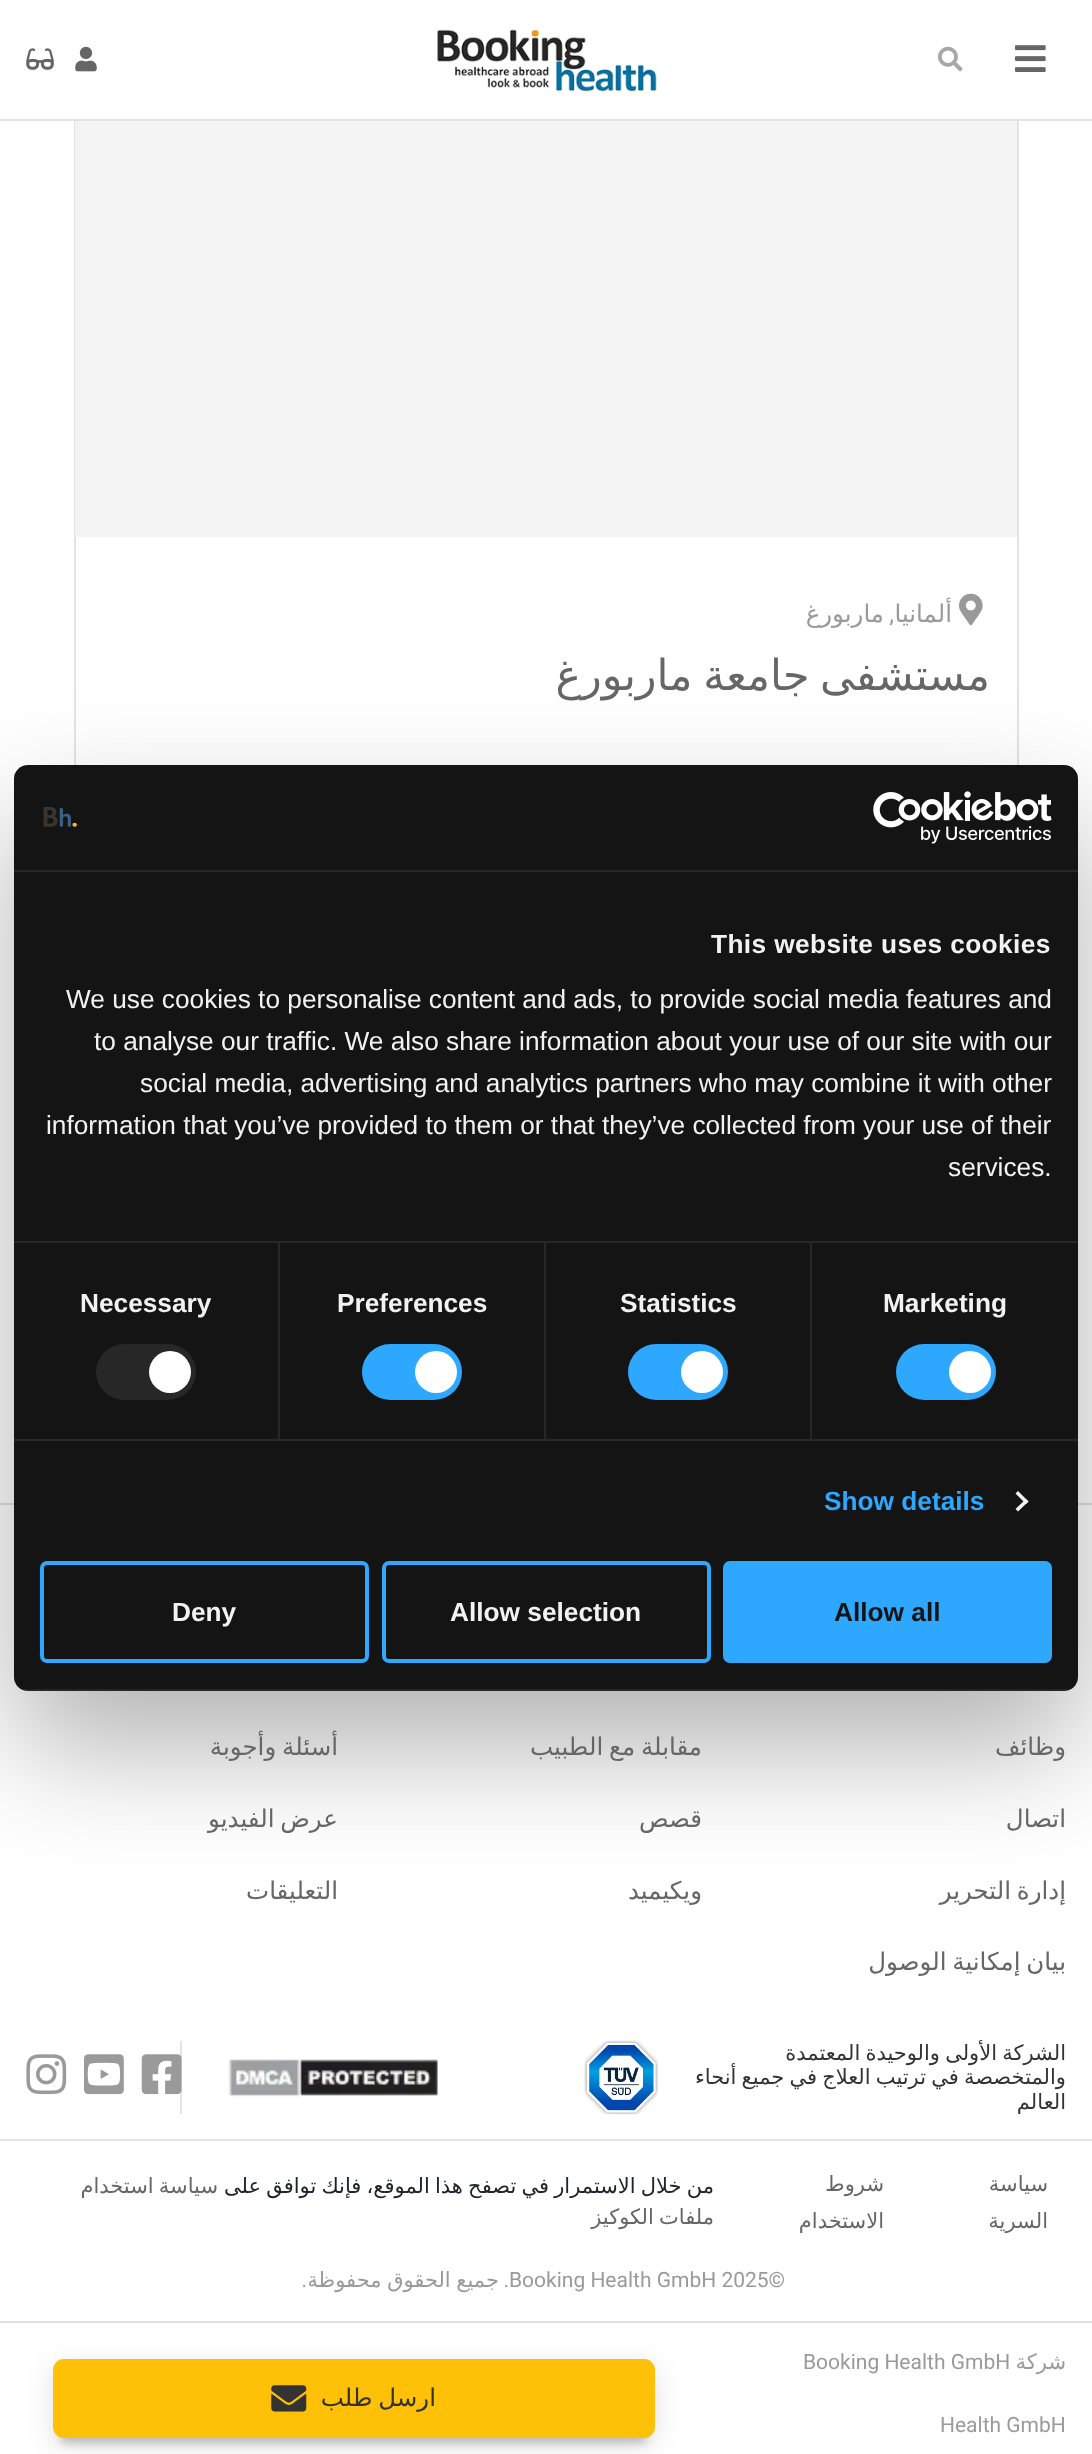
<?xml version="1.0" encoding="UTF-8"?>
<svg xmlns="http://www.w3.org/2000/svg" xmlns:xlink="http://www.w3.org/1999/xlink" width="1092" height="2454">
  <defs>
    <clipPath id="clip1"><rect x="14" y="765" width="1064" height="926" rx="14" /></clipPath>
  </defs>
  <rect width="100%" height="100%" fill="#ffffff" />
  <rect x="75" y="8" width="943" height="1225" fill="none" stroke="#e3e3e3" stroke-width="2" />
  <rect x="74" y="7" width="945" height="112" fill="#ffffff" />
  <rect y="119" width="1092" height="2" fill="#e3e3e3" />
  <image x="26" y="48" width="28" height="22" xlink:href="image1.png" />
  <image x="75" y="46" width="22" height="26" xlink:href="image2.png" />
  <image x="437" y="29" width="220" height="62" xlink:href="image3.png" />
  <image x="938" y="46" width="25" height="26" xlink:href="image4.png" />
  <image x="1015" y="45" width="31" height="27" xlink:href="image5.png" />
  <rect x="75" y="121" width="942" height="416" fill="#f3f3f3" />
  <image x="959" y="593" width="24" height="33" xlink:href="image6.png" />
  <rect x="61" y="2382" width="585" height="61" rx="2" fill="#000000" fill-opacity="0.2" filter="blur(4.5px)" />
  <rect x="53" y="2366" width="602" height="79" rx="11" fill="#000000" fill-opacity="0.12" filter="blur(13px)" />
  <rect x="55" y="2361" width="598" height="75" rx="9" fill="#ffc107" stroke="#ffc107" stroke-width="4" />
  <image x="271" y="2385" width="36" height="27" xlink:href="image7.png" />
  <rect y="1503" width="1092" height="2" fill="#e3e3e3" />
  <rect x="14" y="821" width="1064" height="926" rx="14" fill="#000000" fill-opacity="0.3" filter="blur(59.5px)" />
  <rect x="14" y="765" width="1064" height="926" rx="14" fill="#141414" />
  <rect x="14" y="870" width="1064" height="2" fill="#272727" />
  <image x="43" y="807" width="34" height="20" xlink:href="image8.png" />
  <image x="873" y="791" width="179" height="53" xlink:href="image9.png" />
  <rect x="14" y="1241" width="1064" height="2" fill="#272727" />
  <rect x="14" y="1439" width="1064" height="2" fill="#272727" />
  <rect x="278" y="1243" width="2" height="196" fill="#272727" />
  <rect x="96" y="1344" width="100" height="56" rx="28" fill="#272727" />
  <circle cx="170" cy="1372" r="21" fill="#ffffff" />
  <rect x="544" y="1243" width="2" height="196" fill="#272727" />
  <rect x="362" y="1344" width="100" height="56" rx="28" fill="#2ea7ff" />
  <circle cx="436" cy="1372" r="21" fill="#ffffff" />
  <rect x="810" y="1243" width="2" height="196" fill="#272727" />
  <rect x="628" y="1344" width="100" height="56" rx="28" fill="#2ea7ff" />
  <circle cx="702" cy="1372" r="21" fill="#ffffff" />
  <rect x="896" y="1344" width="100" height="56" rx="28" fill="#2ea7ff" />
  <circle cx="970" cy="1372" r="21" fill="#ffffff" />
  <path d="M 1018 1491 l 10.5 10.5 l -2.5 2.5 l -10.5 -10.5 z" fill="#f2f2f2" />
  <path d="M 1026 1499 l 2.5 2.5 l -10.5 10 l -2.5 -2.5 z" fill="#f2f2f2" />
  <g clip-path="url(#clip1)">
    <rect x="14" y="1689" width="1064" height="2" fill="#ffffff" fill-opacity="0.08" />
  </g>
  <rect x="42" y="1563" width="325" height="98" rx="5" fill="none" stroke="#2ea7ff" stroke-width="4" />
  <rect x="384" y="1563" width="325" height="98" rx="5" fill="none" stroke="#2ea7ff" stroke-width="4" />
  <rect x="725" y="1563" width="325" height="98" rx="5" fill="#2ea7ff" stroke="#2ea7ff" stroke-width="4" />
  <rect x="180" y="2041" width="2" height="73" fill="#e3e3e3" />
  <image x="26" y="2054" width="41" height="41" xlink:href="image10.png" />
  <image x="84" y="2054" width="40" height="41" xlink:href="image11.png" />
  <image x="141" y="2054" width="41" height="41" xlink:href="image12.png" />
  <image x="228" y="2058" width="210" height="40" xlink:href="image13.png" />
  <image x="584" y="2040" width="74" height="75" xlink:href="image14.png" />
  <rect y="2139" width="1092" height="2" fill="#e3e3e3" />
  <rect y="2321" width="1092" height="2" fill="#dee2e6" />
  <text x="884" y="622" style="font-family: DejaVu Sans; font-size: 24.5px; direction: rtl; fill: #9a9a9a">ماربورغ</text>
  <text x="894" y="622" style="font-family: Roboto; font-size: 24.5px; direction: rtl; fill: #9a9a9a">,</text>
  <text x="952" y="622" style="font-family: DejaVu Sans; font-size: 24.5px; direction: rtl; fill: #9a9a9a">ألمانيا</text>
  <text x="990" y="690" word-spacing="-3" style="font-family: DejaVu Sans; font-size: 42.9px; direction: rtl; fill: #666666">مستشفى جامعة ماربورغ</text>
  <text x="436" y="2406" word-spacing="-2" style="font-family: DejaVu Sans; font-size: 24.5px; direction: rtl; fill: #333333">ارسل طلب</text>
  <text x="711" y="953" style="font-family: Liberation Sans; font-size: 26.25px; font-weight: bold; letter-spacing: 0.4px; fill: #f2f2f2">This website uses cookies</text>
  <text x="66" y="1008" style="font-family: Liberation Sans; font-size: 26.25px; fill: #f2f2f2">We use cookies to personalise content and ads, to provide social media features and</text>
  <text x="94" y="1050" style="font-family: Liberation Sans; font-size: 26.25px; fill: #f2f2f2">to analyse our traffic. We also share information about your use of our site with our</text>
  <text x="140" y="1092" style="font-family: Liberation Sans; font-size: 26.25px; fill: #f2f2f2">social media, advertising and analytics partners who may combine it with other</text>
  <text x="46" y="1134" style="font-family: Liberation Sans; font-size: 26.25px; fill: #f2f2f2">information that you’ve provided to them or that they’ve collected from your use of their</text>
  <text x="948" y="1176" style="font-family: Liberation Sans; font-size: 26.25px; fill: #f2f2f2">services.</text>
  <text x="80" y="1312" style="font-family: Liberation Sans; font-size: 26.25px; font-weight: bold; fill: #f2f2f2">Necessary</text>
  <text x="337" y="1312" style="font-family: Liberation Sans; font-size: 26.25px; font-weight: bold; fill: #f2f2f2">Preferences</text>
  <text x="620" y="1312" style="font-family: Liberation Sans; font-size: 26.25px; font-weight: bold; fill: #f2f2f2">Statistics</text>
  <text x="883" y="1312" style="font-family: Liberation Sans; font-size: 26.25px; font-weight: bold; fill: #f2f2f2">Marketing</text>
  <text x="824" y="1510" style="font-family: Liberation Sans; font-size: 26.25px; font-weight: bold; fill: #2ea7ff">Show details</text>
  <text x="172" y="1621" style="font-family: Liberation Sans; font-size: 26.25px; font-weight: bold; fill: #f2f2f2">Deny</text>
  <text x="450" y="1621" style="font-family: Liberation Sans; font-size: 26.25px; font-weight: bold; fill: #f2f2f2">Allow selection</text>
  <text x="834" y="1621" style="font-family: Liberation Sans; font-size: 26.25px; font-weight: bold; fill: #141414">Allow all</text>
  <text x="338" y="1755" word-spacing="-2" style="font-family: DejaVu Sans; font-size: 24.5px; direction: rtl; fill: #666666">أسئلة وأجوبة</text>
  <text x="338" y="1827" word-spacing="-2" style="font-family: DejaVu Sans; font-size: 24.5px; direction: rtl; fill: #666666">عرض الفيديو</text>
  <text x="338" y="1899" style="font-family: DejaVu Sans; font-size: 24.5px; direction: rtl; fill: #666666">التعليقات</text>
  <text x="702" y="1755" word-spacing="-2" style="font-family: DejaVu Sans; font-size: 24.5px; direction: rtl; fill: #666666">مقابلة مع الطبيب</text>
  <text x="702" y="1827" style="font-family: DejaVu Sans; font-size: 24.5px; direction: rtl; fill: #666666">قصص</text>
  <text x="702" y="1899" style="font-family: DejaVu Sans; font-size: 24.5px; direction: rtl; fill: #666666">ويكيميد</text>
  <text x="1066" y="1755" style="font-family: DejaVu Sans; font-size: 24.5px; direction: rtl; fill: #666666">وظائف</text>
  <text x="1066" y="1827" style="font-family: DejaVu Sans; font-size: 24.5px; direction: rtl; fill: #666666">اتصال</text>
  <text x="1066" y="1899" word-spacing="-2" style="font-family: DejaVu Sans; font-size: 24.5px; direction: rtl; fill: #666666">إدارة التحرير</text>
  <text x="1066" y="1970" word-spacing="-2" style="font-family: DejaVu Sans; font-size: 24.5px; direction: rtl; fill: #666666">بيان إمكانية الوصول</text>
  <text x="1066" y="2060" word-spacing="-1.5" style="font-family: DejaVu Sans; font-size: 21px; direction: rtl; fill: #333333">الشركة الأولى والوحيدة المعتمدة</text>
  <text x="1066" y="2084" word-spacing="-1.5" style="font-family: DejaVu Sans; font-size: 21px; direction: rtl; fill: #333333">والمتخصصة في ترتيب العلاج في جميع أنحاء</text>
  <text x="1066" y="2109" style="font-family: DejaVu Sans; font-size: 21px; direction: rtl; fill: #333333">العالم</text>
  <text x="218" y="2193" word-spacing="-1.5" style="font-family: DejaVu Sans; font-size: 21px; direction: rtl; fill: #666666">سياسة استخدام</text>
  <text x="714" y="2193" word-spacing="-1.5" style="font-family: DejaVu Sans; font-size: 21px; direction: rtl; fill: #212529">من خلال الاستمرار في تصفح هذا الموقع، فإنك توافق على</text>
  <text x="714" y="2224" word-spacing="-1.5" style="font-family: DejaVu Sans; font-size: 21px; direction: rtl; fill: #666666">ملفات الكوكيز</text>
  <text x="884" y="2191" style="font-family: DejaVu Sans; font-size: 21px; direction: rtl; fill: #666666">شروط</text>
  <text x="884" y="2228" style="font-family: DejaVu Sans; font-size: 21px; direction: rtl; fill: #666666">الاستخدام</text>
  <text x="1048" y="2191" style="font-family: DejaVu Sans; font-size: 21px; direction: rtl; fill: #666666">سياسة</text>
  <text x="1048" y="2228" style="font-family: DejaVu Sans; font-size: 21px; direction: rtl; fill: #666666">السرية</text>
  <text x="307" y="2287" style="font-family: Roboto; font-size: 21px; direction: rtl; fill: #9a9a9a">.</text>
  <text x="499" y="2287" word-spacing="-1" style="font-family: DejaVu Sans; font-size: 21px; direction: rtl; fill: #9a9a9a">جميع الحقوق محفوظة</text>
  <text x="509" y="2287" style="font-family: Roboto; font-size: 21px; direction: rtl; fill: #9a9a9a">.</text>
  <text x="509" y="2287" style="font-family: Roboto; font-size: 21px; fill: #9a9a9a">Booking Health GmbH 2025©</text>
  <text x="803" y="2369" style="font-family: Roboto; font-size: 21px; fill: #9a9a9a">Booking Health GmbH</text>
  <text x="1066" y="2369" style="font-family: DejaVu Sans; font-size: 21px; direction: rtl; fill: #9a9a9a">شركة</text>
  <text x="940" y="2432" style="font-family: Roboto; font-size: 21px; fill: #9a9a9a">Health GmbH</text>
</svg>
